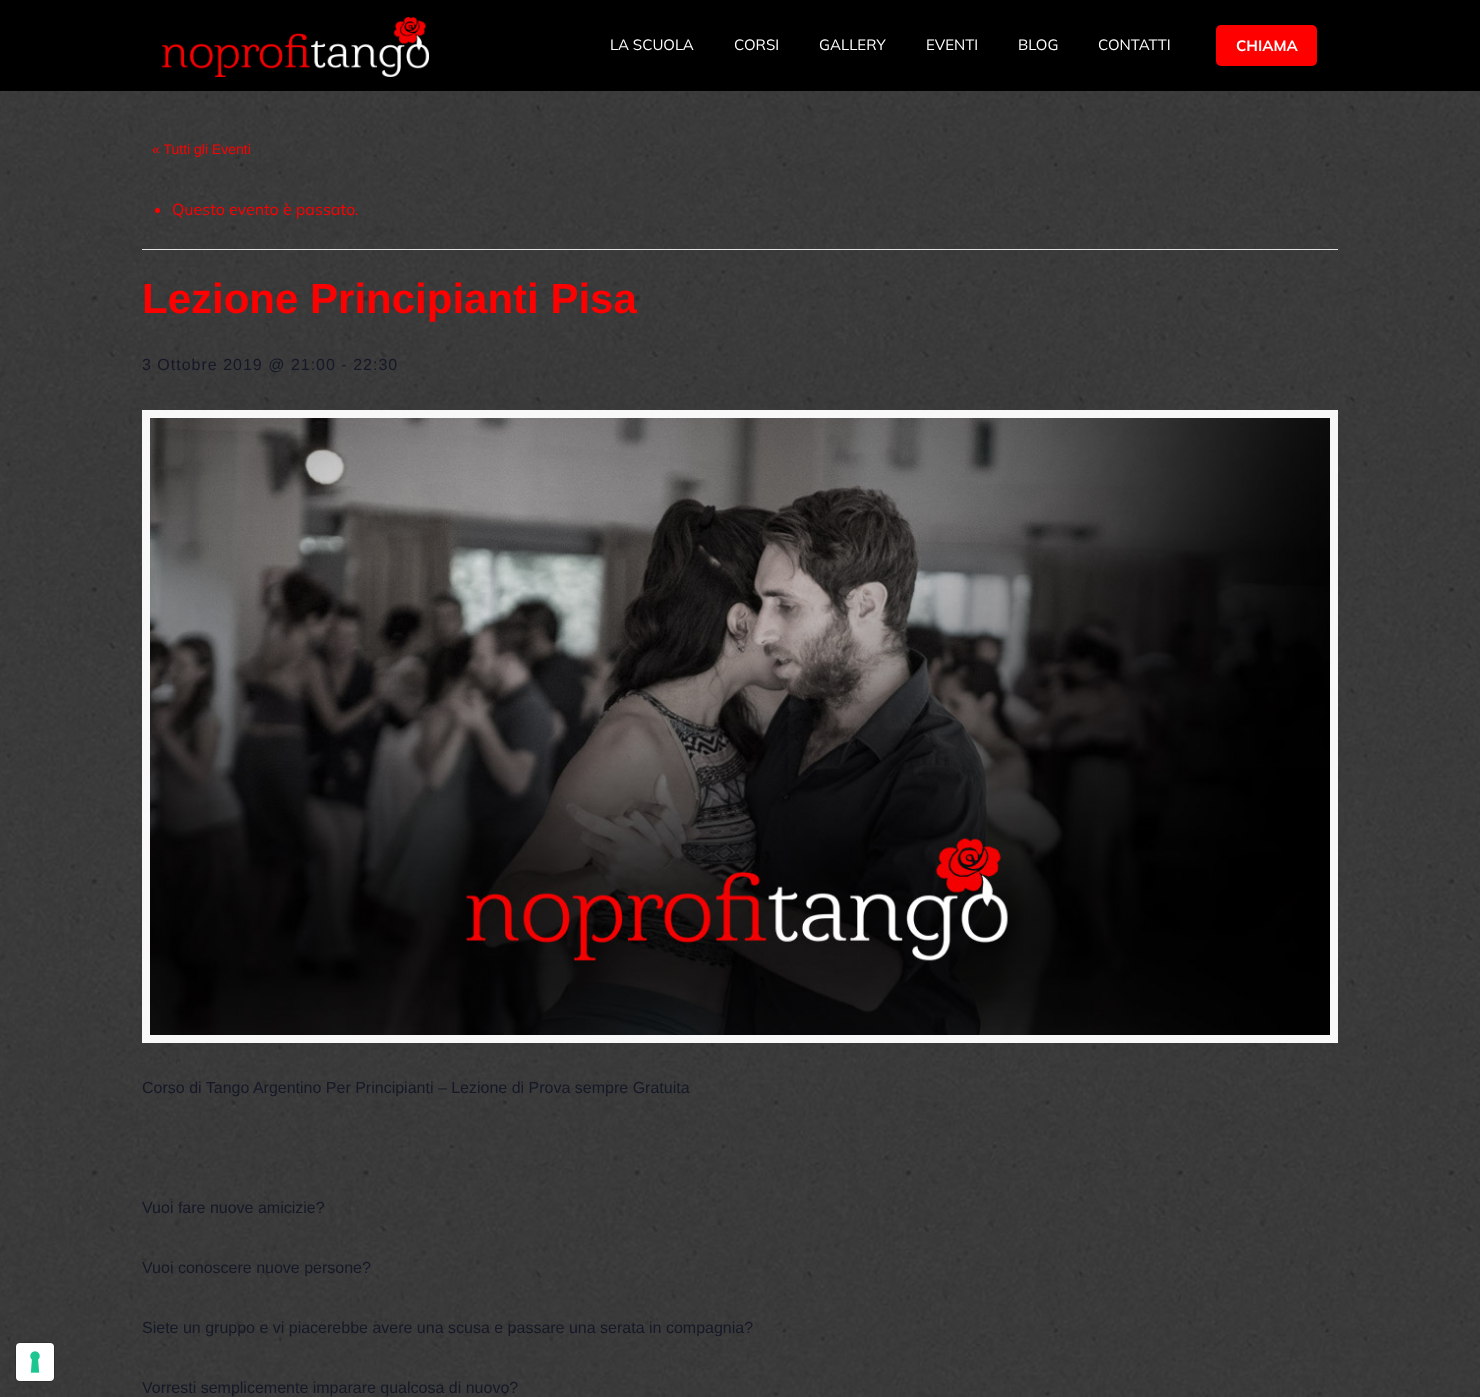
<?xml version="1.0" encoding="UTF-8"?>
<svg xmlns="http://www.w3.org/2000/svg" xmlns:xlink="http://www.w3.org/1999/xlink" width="1480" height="1397">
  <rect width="100%" height="100%" fill="#ffffff" />
  <image x="0" y="91" width="1480" height="1306" xlink:href="image1.png" />
  <rect x="15.5" y="1342.5" width="39" height="39" rx="4.5" fill="none" stroke="#000000" stroke-opacity="0.15" />
  <rect x="16" y="1343" width="38" height="38" rx="4" fill="#ffffff" />
  <image x="30" y="1351" width="10" height="22" xlink:href="image2.png" />
  <rect width="1480" height="91" fill="#000000" />
  <image x="162" y="17" width="267" height="60" xlink:href="image3.png" />
  <rect x="1216" y="25" width="101" height="41" rx="5" fill="#ff0000" />
  <rect x="142" y="249" width="1196" height="1" fill="#e4e4e4" />
  <circle cx="157.5" cy="210.5" r="2.5" fill="#ff0000" />
  <rect x="146" y="414" width="1188" height="625" fill="none" stroke="#f8f8f8" stroke-width="8" />
  <image x="150" y="418" width="1180" height="617" xlink:href="image4.png" />
  <text x="610" y="50" style="font-family: Mulish; font-size: 15px; fill: #ffffff">LA SCUOLA</text>
  <text x="734" y="50" style="font-family: Mulish; font-size: 15px; fill: #ffffff">CORSI</text>
  <text x="819" y="50" style="font-family: Mulish; font-size: 15px; fill: #ffffff">GALLERY</text>
  <text x="926" y="50" style="font-family: Mulish; font-size: 15px; fill: #ffffff">EVENTI</text>
  <text x="1018" y="50" style="font-family: Mulish; font-size: 15px; fill: #ffffff">BLOG</text>
  <text x="1098" y="50" style="font-family: Mulish; font-size: 15px; fill: #ffffff">CONTATTI</text>
  <text x="1236" y="51" style="font-family: Mulish; font-size: 15px; font-weight: bold; fill: #ffffff">CHIAMA</text>
  <text x="152" y="154" style="font-family: Liberation Sans; font-size: 14px; fill: #ff0000">« Tutti gli Eventi</text>
  <text x="172" y="215" style="font-family: Mulish; font-size: 16px; fill: #ff0000">Questo evento è passato.</text>
  <text x="142" y="313" style="font-family: Liberation Sans; font-size: 42px; font-weight: bold; fill: #ff0000">Lezione Principianti Pisa</text>
  <text x="142" y="370" style="font-family: Liberation Sans; font-size: 16px; letter-spacing: 1px; fill: #141827">3 Ottobre 2019 @ 21:00 - 22:30</text>
  <text x="142" y="1093" style="font-family: Liberation Sans; font-size: 16px; fill: #141827">Corso di Tango Argentino Per Principianti – Lezione di Prova sempre Gratuita</text>
  <text x="142" y="1213" style="font-family: Liberation Sans; font-size: 16px; fill: #141827">Vuoi fare nuove amicizie?</text>
  <text x="142" y="1273" style="font-family: Liberation Sans; font-size: 16px; fill: #141827">Vuoi conoscere nuove persone?</text>
  <text x="142" y="1333" style="font-family: Liberation Sans; font-size: 16px; fill: #141827">Siete un gruppo e vi piacerebbe avere una scusa e passare una serata in compagnia?</text>
  <text x="142" y="1393" style="font-family: Liberation Sans; font-size: 16px; fill: #141827">Vorresti semplicemente imparare qualcosa di nuovo?</text>
</svg>
